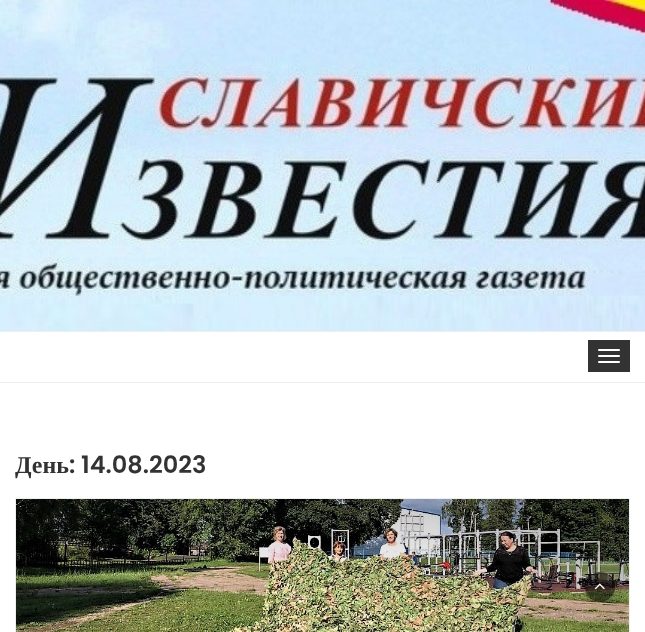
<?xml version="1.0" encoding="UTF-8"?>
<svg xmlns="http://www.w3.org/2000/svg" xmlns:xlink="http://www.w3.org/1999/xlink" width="645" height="632">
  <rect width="100%" height="100%" fill="#ffffff" />
  <image x="0" y="0" width="645" height="331" xlink:href="image1.png" />
  <rect y="331" width="645" height="1" fill="#eeeeee" />
  <rect y="382" width="645" height="1" fill="#eeeeee" />
  <rect x="588" y="340" width="42" height="32" fill="#333333" />
  <rect x="598" y="349" width="22" height="2" rx="1" fill="#ffffff" />
  <rect x="598" y="355" width="22" height="2" rx="1" fill="#ffffff" />
  <rect x="598" y="361" width="22" height="2" rx="1" fill="#ffffff" />
  <rect x="15.5" y="498.5" width="614" height="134" fill="none" stroke="#eeeeee" />
  <image x="16" y="499" width="613" height="133" xlink:href="image2.png" />
  <circle cx="600" cy="587" r="15" fill="#000000" fill-opacity="0.5" />
  <image x="594" y="583" width="11" height="7" xlink:href="image3.png" />
  <text x="15" y="473" style="font-family: Liberation Serif; font-size: 24px; font-weight: bold; fill: #333333">День</text>
  <text x="69" y="473" style="font-family: Poppins; font-size: 24px; font-weight: 600; fill: #333333">: 14.08.2023</text>
</svg>
